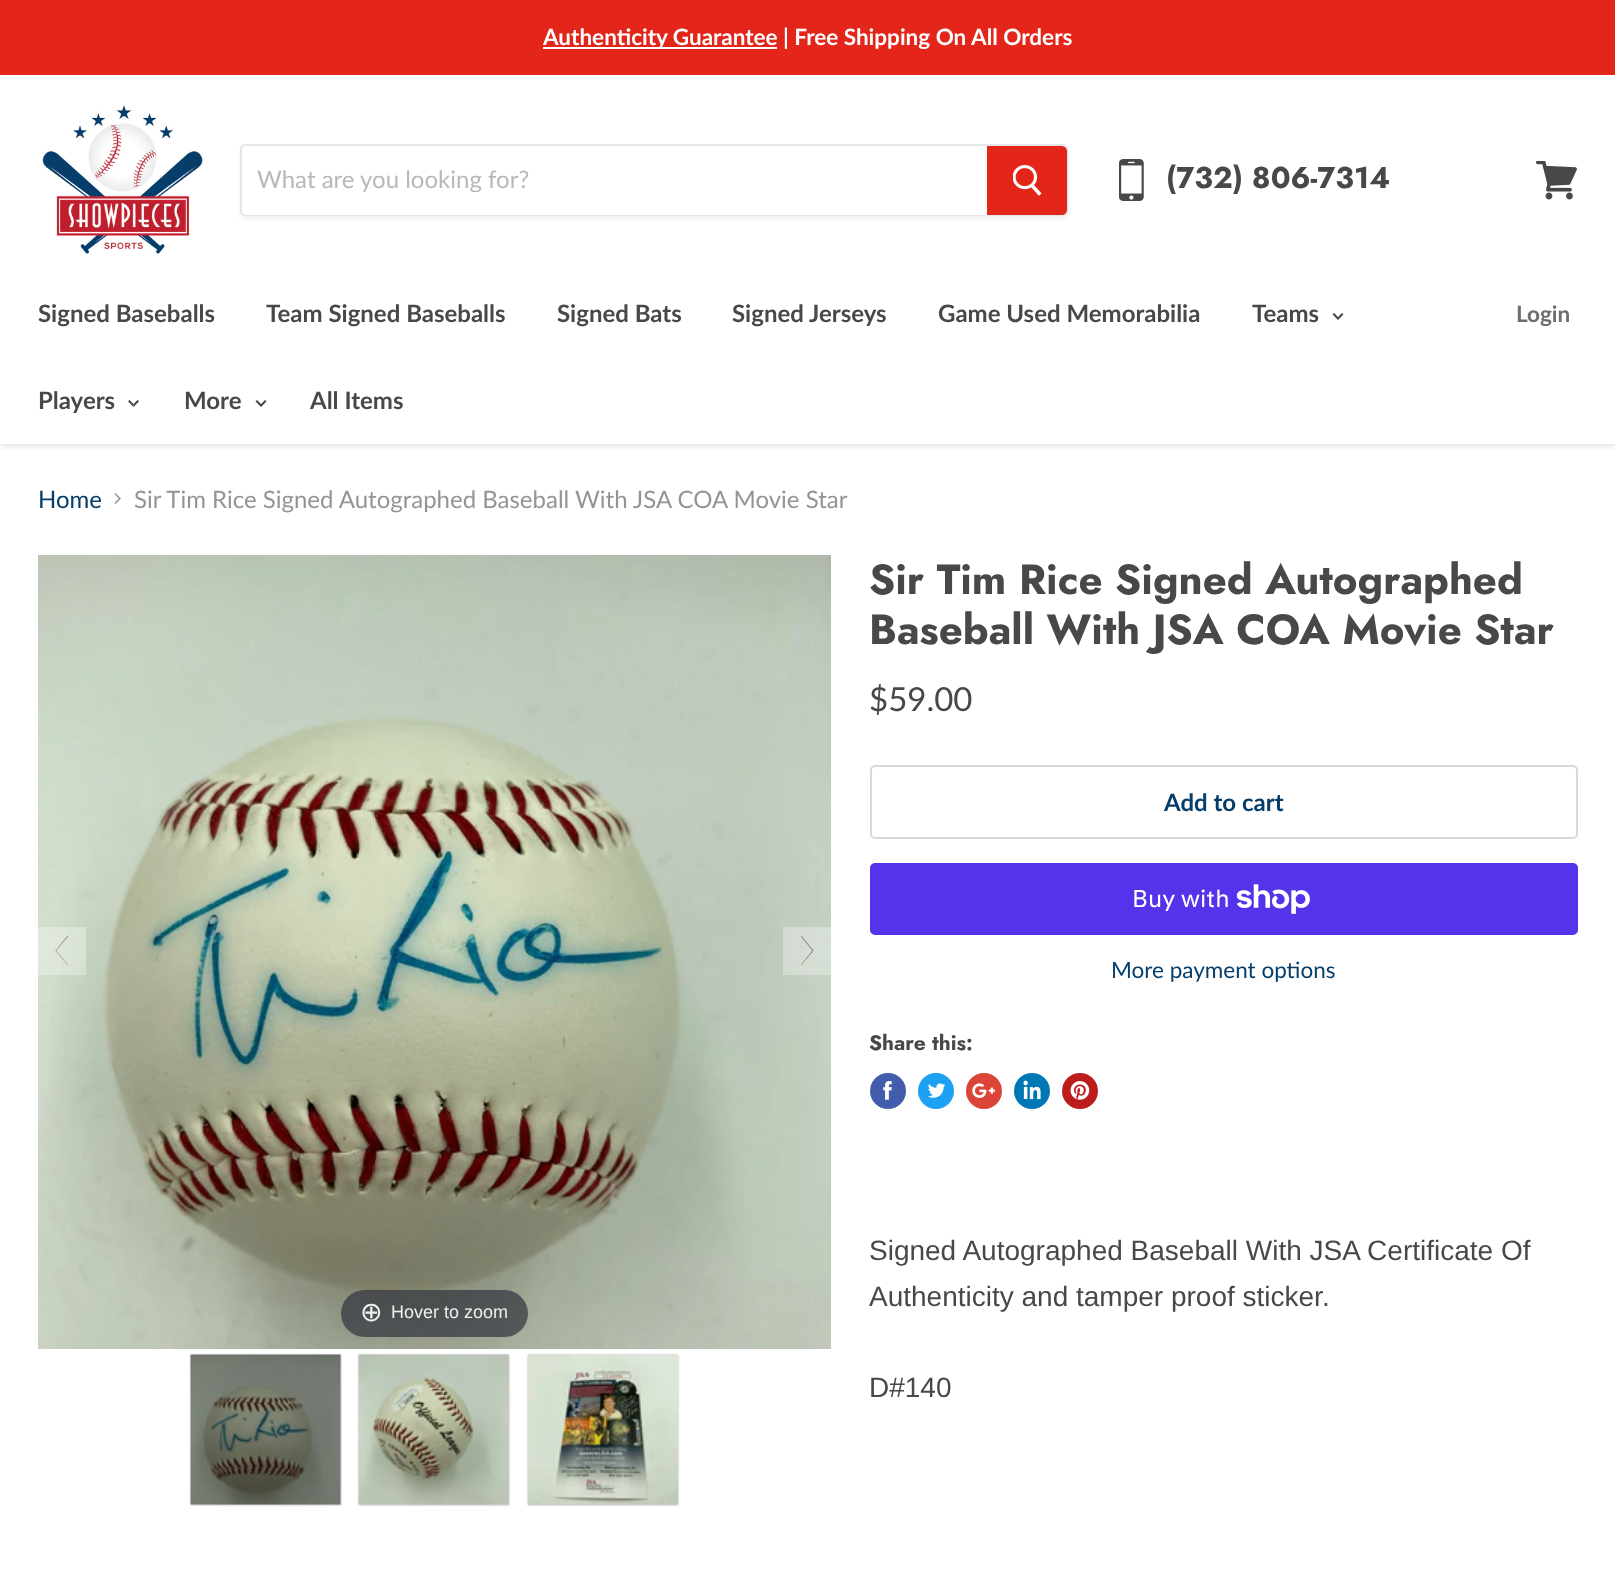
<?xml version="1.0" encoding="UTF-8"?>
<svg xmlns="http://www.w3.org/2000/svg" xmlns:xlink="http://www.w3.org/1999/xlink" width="1615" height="1585">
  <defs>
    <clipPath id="clip1"><rect x="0" y="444" width="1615" height="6" /></clipPath>
    <clipPath id="clip2"><path d="M 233 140 h 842 v 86 h -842 z m 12 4 h 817 c 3.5 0 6 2.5 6 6 v 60 c 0 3.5 -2.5 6 -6 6 h -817 c -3 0 -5 -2 -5 -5 v -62 c 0 -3 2 -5 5 -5 z" clip-rule="evenodd" /></clipPath>
    <clipPath id="clip3"><rect x="257" y="164" width="715" height="28" /></clipPath>
  </defs>
  <rect width="100%" height="100%" fill="#ffffff" />
  <g clip-path="url(#clip1)">
    <rect y="2" width="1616" height="444" fill="#7f7f7f" fill-opacity="0.25" filter="blur(3px)" />
  </g>
  <rect width="1615" height="75" fill="#e32619" />
  <rect x="543" y="47" width="234" height="2" fill="#ffffff" />
  <image x="42" y="105" width="161" height="150" xlink:href="image1.png" />
  <g clip-path="url(#clip2)">
    <rect x="240" y="147" width="828" height="72" rx="6" fill="#7f7f7f" fill-opacity="0.11" filter="blur(2px)" />
  </g>
  <path d="M 245 145 h 817 c 3 0 5 2 5 5 v 60 c 0 3 -2 5 -5 5 h -817 c -2 0 -4 -2 -4 -4 v -62 c 0 -2 2 -4 4 -4 z" fill="none" stroke="#7f7f7f" stroke-opacity="0.2" stroke-width="2" />
  <path d="M 247 146 h 740 v 69 h -740 c -3 0 -5 -2 -5 -5 v -59 c 0 -3 2 -5 5 -5 z" fill="#ffffff" />
  <path d="M 988 147 h 74 c 2 0 4 2 4 4 v 59 c 0 2 -2 4 -4 4 h -74 z" fill="#e32619" stroke="#e32619" stroke-width="2" />
  <image x="1013" y="165" width="29" height="31" xlink:href="image2.png" />
  <image x="1119" y="159" width="25" height="42" xlink:href="image3.png" />
  <image x="1536" y="161" width="41" height="39" xlink:href="image4.png" />
  <image x="1332" y="313" width="12" height="7" xlink:href="image5.png" />
  <image x="128" y="400" width="11" height="7" xlink:href="image6.png" />
  <image x="255" y="400" width="12" height="7" xlink:href="image5.png" />
  <image x="114" y="493" width="7" height="11" xlink:href="image7.png" />
  <image x="38" y="555" width="793" height="794" xlink:href="image8.png" />
  <rect x="38" y="927" width="48" height="48" fill="#ffffff" fill-opacity="0.3" />
  <path d="M 55.5 950.5 l 12 -14.5 l 0.5 0.5 l -12 14 l 12 14.5 h -0.5 z" fill="#000000" fill-opacity="0.5" />
  <rect x="783" y="927" width="48" height="48" fill="#ffffff" fill-opacity="0.3" />
  <path d="M 813.5 950.5 l -12 14.5 h -0.5 l 11.5 -14.5 l -11.5 -14 l 0.5 -0.5 z" fill="#000000" fill-opacity="0.5" />
  <rect x="341" y="1290" width="187" height="47" rx="23.5" fill="#31333d" fill-opacity="0.7" />
  <rect x="191" y="1355" width="150" height="150" fill="#000000" fill-opacity="0.3" filter="blur(1px)" />
  <image x="190" y="1354" width="151" height="151" xlink:href="image9.png" />
  <rect x="359" y="1355" width="150" height="150" fill="#000000" fill-opacity="0.3" filter="blur(1px)" />
  <image x="358" y="1354" width="151" height="151" xlink:href="image10.png" />
  <rect x="528" y="1355" width="150" height="150" fill="#000000" fill-opacity="0.3" filter="blur(1px)" />
  <image x="528" y="1354" width="150" height="151" xlink:href="image11.png" />
  <rect x="871" y="766" width="706" height="72" rx="4" fill="none" stroke="#d9d9d9" stroke-width="2" />
  <rect x="870" y="863" width="708" height="72" rx="5" fill="#5433eb" />
  <image x="1236" y="884" width="74" height="30" xlink:href="image12.png" />
  <circle cx="888" cy="1091" r="18" fill="#425dab" />
  <image x="883" y="1081" width="9" height="19" xlink:href="image13.png" />
  <circle cx="936" cy="1091" r="18" fill="#1da1f2" />
  <image x="927" y="1083" width="19" height="15" xlink:href="image14.png" />
  <circle cx="984" cy="1091" r="18" fill="#db4437" />
  <image x="972" y="1083" width="23" height="15" xlink:href="image15.png" />
  <circle cx="1032" cy="1091" r="18" fill="#0077b5" />
  <image x="1023" y="1080" width="18" height="20" xlink:href="image16.png" />
  <circle cx="1080" cy="1091" r="18" fill="#bd1c1c" />
  <image x="1070" y="1081" width="20" height="19" xlink:href="image17.png" />
  <text x="543" y="45" style="font-family: Lato; font-size: 22.5px; font-weight: bold; fill: #ffffff">Authenticity Guarantee</text>
  <text x="783" y="45" style="font-family: Lato; font-size: 22.5px; font-weight: bold; fill: #ffffff">| Free Shipping On All Orders</text>
  <g clip-path="url(#clip3)">
    <text x="257" y="188" style="font-family: Lato; font-size: 24px; fill: #b8b8b8">What are you looking for?</text>
  </g>
  <text x="1166" y="188" style="font-family: Jost; font-size: 30px; font-weight: bold; fill: #484848">(732) 806-7314</text>
  <text x="38" y="322" style="font-family: Lato; font-size: 24px; font-weight: bold; fill: #484848">Signed Baseballs</text>
  <text x="266" y="322" style="font-family: Lato; font-size: 24px; font-weight: bold; fill: #484848">Team Signed Baseballs</text>
  <text x="557" y="322" style="font-family: Lato; font-size: 24px; font-weight: bold; fill: #484848">Signed Bats</text>
  <text x="732" y="322" style="font-family: Lato; font-size: 24px; font-weight: bold; fill: #484848">Signed Jerseys</text>
  <text x="938" y="322" style="font-family: Lato; font-size: 24px; font-weight: bold; fill: #484848">Game Used Memorabilia</text>
  <text x="1252" y="322" style="font-family: Lato; font-size: 24px; font-weight: bold; fill: #484848">Teams</text>
  <text x="38" y="409" style="font-family: Lato; font-size: 24px; font-weight: bold; fill: #484848">Players</text>
  <text x="184" y="409" style="font-family: Lato; font-size: 24px; font-weight: bold; fill: #484848">More</text>
  <text x="310" y="409" style="font-family: Lato; font-size: 24px; font-weight: bold; fill: #484848">All Items</text>
  <text x="1516" y="322" style="font-family: Lato; font-size: 22.5px; font-weight: bold; fill: #6d6d6d">Login</text>
  <text x="38" y="508" style="font-family: Lato; font-size: 24px; fill: #053e6b">Home</text>
  <text x="134" y="508" style="font-family: Lato; font-size: 24px; fill: #949494">Sir Tim Rice Signed Autographed Baseball With JSA COA Movie Star</text>
  <text x="360" y="1321" style="font-family: DejaVu Sans; font-size: 27px; fill: #eeeeee">⊕</text>
  <text x="391" y="1318" style="font-family: Liberation Sans; font-size: 18px; fill: #eeeeee">Hover to zoom</text>
  <text x="869" y="594" style="font-family: Jost; font-size: 42px; font-weight: bold; fill: #484848">Sir Tim Rice Signed Autographed</text>
  <text x="869" y="644" style="font-family: Jost; font-size: 42px; font-weight: bold; fill: #484848">Baseball With JSA COA Movie Star</text>
  <text x="869" y="711" style="font-family: Lato; font-size: 33px; fill: #484848">$59.00</text>
  <text x="1164" y="811" style="font-family: Lato; font-size: 24px; font-weight: bold; fill: #053e6b">Add to cart</text>
  <text x="1132" y="907" style="font-family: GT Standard; font-size: 24px; fill: #ffffff">Buy with</text>
  <text x="1111" y="978" style="font-family: Lato; font-size: 22.5px; fill: #053e6b">More payment options</text>
  <text x="869" y="1050" style="font-family: Jost; font-size: 21px; font-weight: bold; fill: #484848">Share this:</text>
  <text x="869" y="1260" style="font-family: Liberation Sans; font-size: 28px; fill: #484848">Signed Autographed Baseball With JSA Certificate Of</text>
  <text x="869" y="1306" style="font-family: Liberation Sans; font-size: 28px; fill: #484848">Authenticity and tamper proof sticker.</text>
  <text x="869" y="1397" style="font-family: Liberation Sans; font-size: 28px; fill: #484848">D#140</text>
</svg>
